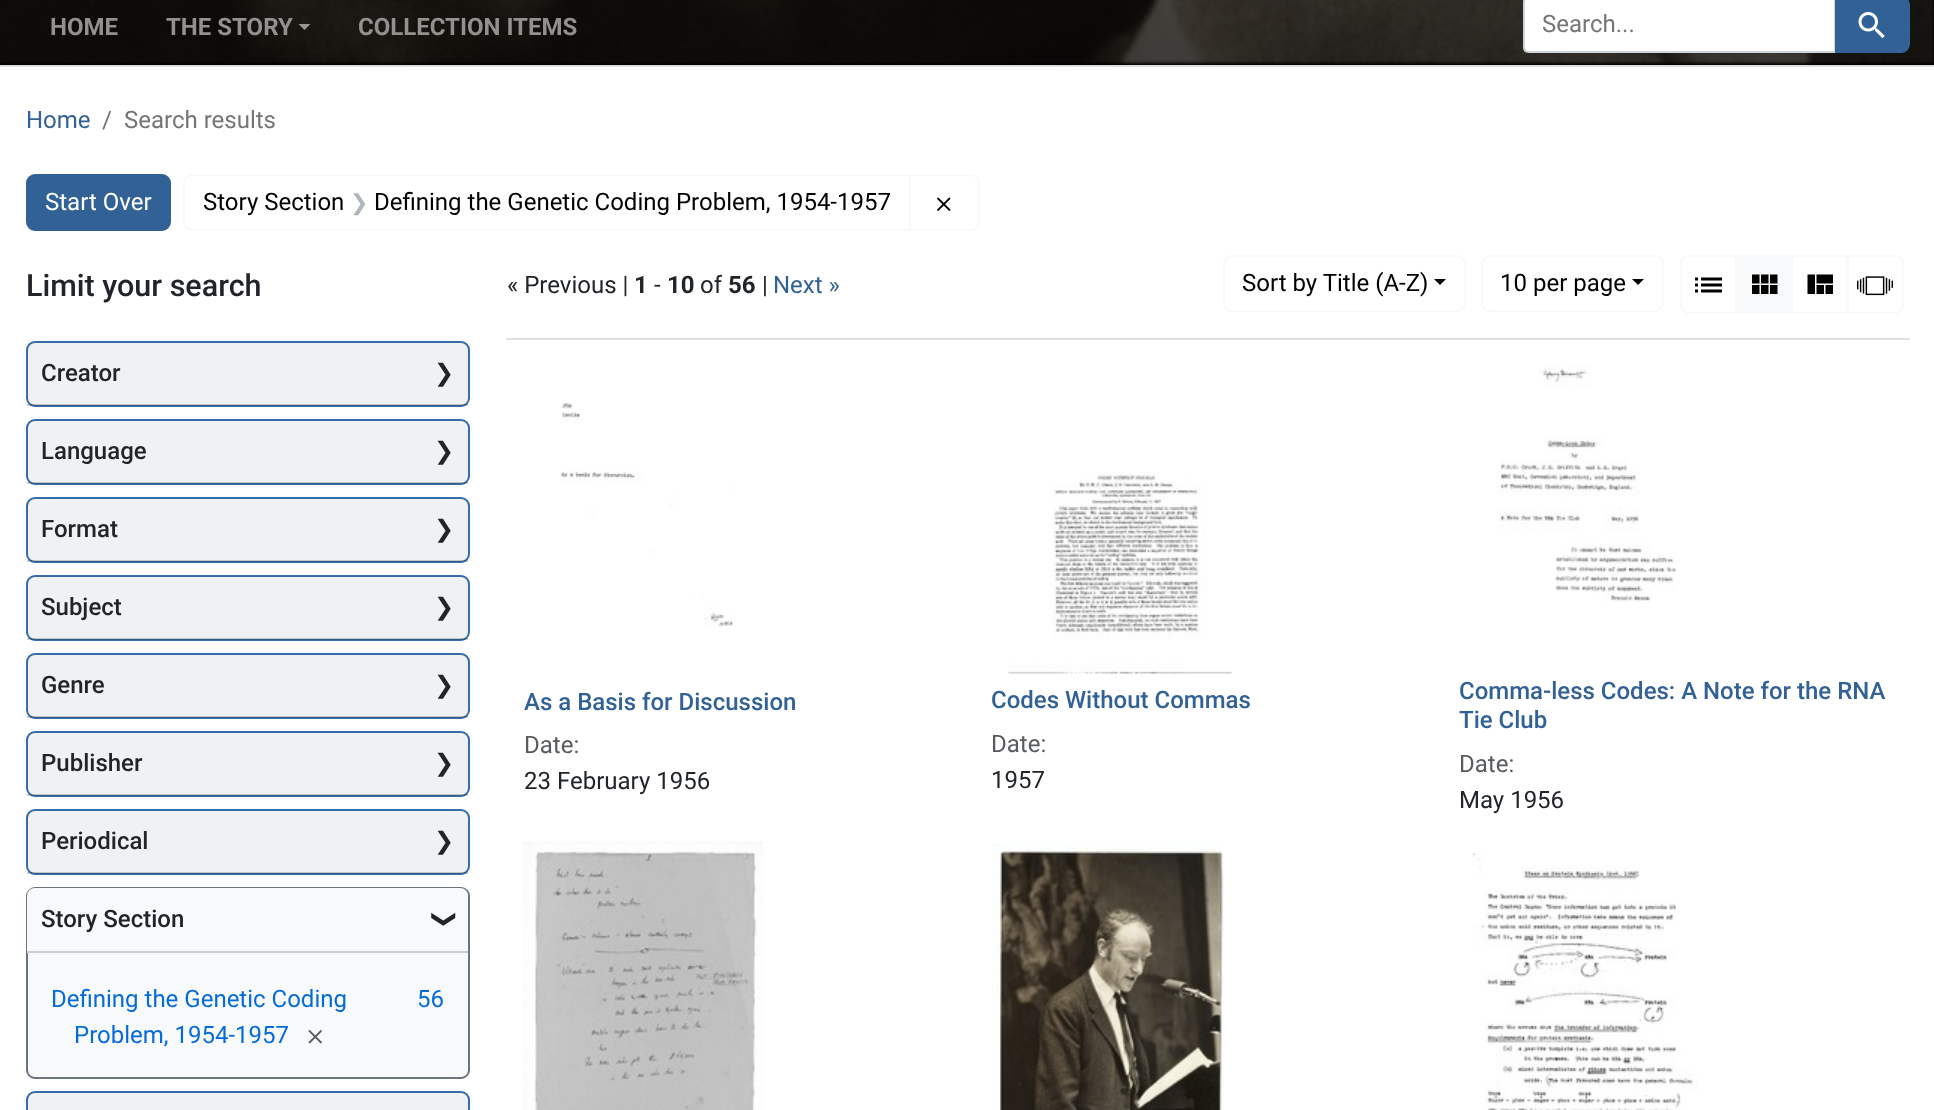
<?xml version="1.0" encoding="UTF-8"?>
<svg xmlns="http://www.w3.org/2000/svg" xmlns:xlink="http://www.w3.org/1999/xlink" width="1934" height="1110">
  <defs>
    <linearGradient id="g1" gradientUnits="userSpaceOnUse" x1="968" y1="-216" x2="968" y2="65"><stop offset="0" stop-color="#000000" stop-opacity="0" /><stop offset="0.5" stop-color="#000000" stop-opacity="0.4" /><stop offset="1" stop-color="#000000" stop-opacity="0.5" /></linearGradient>
  </defs>
  <rect width="100%" height="100%" fill="#ffffff" />
  <rect width="1934" height="65" fill="#000000" />
  <rect y="65" width="1934" height="2" fill="#dee2e6" />
  <image x="0" y="0" width="1934" height="66" xlink:href="image1.png" />
  <rect x="1934" y="-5" width="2" height="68" fill="#000000" filter="blur(1.5px)" />
  <rect width="1934" height="65" fill="url(#g1)" />
  <path d="M 298.5 24 h 12 l -6 6 z" fill="#ffffff" fill-opacity="0.55" />
  <path d="M 1529 -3 h 306 v 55 h -306 c -3 0 -5 -2 -5 -5 v -45 c 0 -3 2 -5 5 -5 z" fill="#ffffff" stroke="#ced4da" stroke-width="2" />
  <path d="M 1836 -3 h 65 c 4.5 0 8 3.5 8 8 v 39 c 0 4.5 -3.5 8 -8 8 h -65 z" fill="#326295" stroke="#326295" stroke-width="2" />
  <image x="1858" y="12" width="27" height="27" xlink:href="image2.png" />
  <rect x="27" y="175" width="143" height="55" rx="8" fill="#326295" stroke="#326295" stroke-width="2" />
  <path d="M 192 175 h 718 v 55 h -718 c -4.5 0 -8 -3.5 -8 -8 v -39 c 0 -4.5 3.5 -8 8 -8 z" fill="none" stroke="#f8f9fa" stroke-width="2" />
  <path d="M 910 175 h 61 c 4.5 0 8 3.5 8 8 v 39 c 0 4.5 -3.5 8 -8 8 h -61 z" fill="none" stroke="#f8f9fa" stroke-width="2" />
  <image x="937" y="197" width="14" height="14" xlink:href="image3.png" />
  <rect x="27" y="342" width="442" height="64" rx="8" fill="#f8f9fa" stroke="#376faa" stroke-width="2" />
  <rect x="27" y="342" width="441" height="63" fill="#000000" fill-opacity="0.03" />
  <rect x="27" y="404" width="441" height="2" fill="#000000" fill-opacity="0.18" />
  <rect x="27" y="420" width="442" height="64" rx="8" fill="#f8f9fa" stroke="#376faa" stroke-width="2" />
  <rect x="27" y="420" width="441" height="63" fill="#000000" fill-opacity="0.03" />
  <rect x="27" y="482" width="441" height="2" fill="#000000" fill-opacity="0.18" />
  <rect x="27" y="498" width="442" height="64" rx="8" fill="#f8f9fa" stroke="#376faa" stroke-width="2" />
  <rect x="27" y="498" width="441" height="63" fill="#000000" fill-opacity="0.03" />
  <rect x="27" y="560" width="441" height="2" fill="#000000" fill-opacity="0.18" />
  <rect x="27" y="576" width="442" height="64" rx="8" fill="#f8f9fa" stroke="#376faa" stroke-width="2" />
  <rect x="27" y="576" width="441" height="63" fill="#000000" fill-opacity="0.03" />
  <rect x="27" y="638" width="441" height="2" fill="#000000" fill-opacity="0.18" />
  <rect x="27" y="654" width="442" height="64" rx="8" fill="#f8f9fa" stroke="#376faa" stroke-width="2" />
  <rect x="27" y="654" width="441" height="63" fill="#000000" fill-opacity="0.03" />
  <rect x="27" y="716" width="441" height="2" fill="#000000" fill-opacity="0.18" />
  <rect x="27" y="732" width="442" height="64" rx="8" fill="#f8f9fa" stroke="#376faa" stroke-width="2" />
  <rect x="27" y="732" width="441" height="63" fill="#000000" fill-opacity="0.03" />
  <rect x="27" y="794" width="441" height="2" fill="#000000" fill-opacity="0.18" />
  <rect x="27" y="810" width="442" height="64" rx="8" fill="#f8f9fa" stroke="#376faa" stroke-width="2" />
  <rect x="27" y="810" width="441" height="63" fill="#000000" fill-opacity="0.03" />
  <rect x="27" y="872" width="441" height="2" fill="#000000" fill-opacity="0.18" />
  <rect x="27" y="888" width="442" height="190" rx="8" fill="#f8f9fa" stroke="#6c757d" stroke-width="2" />
  <path d="M 35 888 h 425 c 4.5 0 8 3.5 8 8 v 57 h -441 v -57 c 0 -4.5 3.5 -8 8 -8 z" fill="#f8f9fa" />
  <rect x="27" y="951" width="441" height="2" fill="#cccdce" />
  <image x="308" y="1030" width="14" height="14" xlink:href="image4.png" />
  <rect x="27" y="1092" width="442" height="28" rx="8" fill="#f8f9fa" stroke="#376faa" stroke-width="2" />
  <rect x="27" y="1092" width="441" height="18" fill="#000000" fill-opacity="0.03" />
  <rect x="506" y="338" width="1404" height="2" fill="#dee2e6" />
  <rect x="1224" y="256" width="241" height="55" rx="8" fill="none" stroke="#f8f9fa" stroke-width="2" />
  <path d="M 1434 279 h 12 l -6 6 z" fill="#000000" />
  <rect x="1482" y="256" width="181" height="55" rx="8" fill="none" stroke="#f8f9fa" stroke-width="2" />
  <path d="M 1632 279 h 12 l -6 6 z" fill="#000000" />
  <path d="M 1689 256 h 47 v 57 h -47 c -4.5 0 -8 -3.5 -8 -8 v -41 c 0 -4.5 3.5 -8 8 -8 z" fill="none" stroke="#f8f9fa" stroke-width="2" />
  <image x="1695" y="277" width="27" height="16" xlink:href="image5.png" />
  <rect x="1737" y="255" width="54" height="59" fill="#f8f9fa" />
  <image x="1752" y="274" width="26" height="20" xlink:href="image6.png" />
  <rect x="1792" y="256" width="55" height="57" fill="none" stroke="#f8f9fa" stroke-width="2" />
  <image x="1807" y="274" width="26" height="20" xlink:href="image7.png" />
  <path d="M 1848 256 h 47 c 4.5 0 8 3.5 8 8 v 41 c 0 4.5 -3.5 8 -8 8 h -47 z" fill="none" stroke="#f8f9fa" stroke-width="2" />
  <image x="1857" y="276" width="36" height="20" xlink:href="image8.png" />
  <image x="560" y="401" width="175" height="227" xlink:href="image9.png" />
  <image x="1007" y="472" width="225" height="202" xlink:href="image10.png" />
  <image x="1497" y="365" width="179" height="238" xlink:href="image11.png" />
  <image x="523" y="841" width="241" height="269" xlink:href="image12.png" />
  <image x="992" y="842" width="232" height="268" xlink:href="image13.png" />
  <image x="1472" y="853" width="226" height="257" xlink:href="image14.png" />
  <text x="50" y="35" style="font-family: Roboto; font-size: 24px; font-weight: bold; fill: #929190">HOME</text>
  <text x="166" y="35" style="font-family: Roboto; font-size: 24px; font-weight: bold; fill: #929190">THE STORY</text>
  <text x="358" y="35" style="font-family: Roboto; font-size: 24px; font-weight: bold; fill: #929190">COLLECTION ITEMS</text>
  <text x="1542" y="32" style="font-family: Roboto; font-size: 24px; fill: #757575">Search...</text>
  <text x="26" y="128" style="font-family: Roboto; font-size: 24px; fill: #326295">Home</text>
  <text x="102" y="128" style="font-family: Roboto; font-size: 24px; fill: #757575">/</text>
  <text x="124" y="128" style="font-family: Roboto; font-size: 24px; fill: #757575">Search results</text>
  <text x="45" y="210" style="font-family: Roboto; font-size: 24px; fill: #ffffff">Start Over</text>
  <text x="203" y="210" style="font-family: Roboto; font-size: 24px; fill: #000000">Story Section</text>
  <text x="350" y="210" style="font-family: DejaVu Sans; font-size: 22px; fill: #adb5bd">❯</text>
  <text x="374" y="210" style="font-family: Roboto; font-size: 24px; fill: #000000">Defining the Genetic Coding Problem, 1954-1957</text>
  <text x="26" y="296" style="font-family: Roboto; font-size: 30.5px; font-weight: 500; fill: #212529">Limit your search</text>
  <text x="41" y="381" style="font-family: Roboto; font-size: 24px; font-weight: 500; fill: #212529">Creator</text>
  <text x="434" y="381" style="font-family: DejaVu Sans; font-size: 24px; fill: #212529">❯</text>
  <text x="41" y="459" style="font-family: Roboto; font-size: 24px; font-weight: 500; fill: #212529">Language</text>
  <text x="434" y="459" style="font-family: DejaVu Sans; font-size: 24px; fill: #212529">❯</text>
  <text x="41" y="537" style="font-family: Roboto; font-size: 24px; font-weight: 500; fill: #212529">Format</text>
  <text x="434" y="537" style="font-family: DejaVu Sans; font-size: 24px; fill: #212529">❯</text>
  <text x="41" y="615" style="font-family: Roboto; font-size: 24px; font-weight: 500; fill: #212529">Subject</text>
  <text x="434" y="615" style="font-family: DejaVu Sans; font-size: 24px; fill: #212529">❯</text>
  <text x="41" y="693" style="font-family: Roboto; font-size: 24px; font-weight: 500; fill: #212529">Genre</text>
  <text x="434" y="693" style="font-family: DejaVu Sans; font-size: 24px; fill: #212529">❯</text>
  <text x="41" y="771" style="font-family: Roboto; font-size: 24px; font-weight: 500; fill: #212529">Publisher</text>
  <text x="434" y="771" style="font-family: DejaVu Sans; font-size: 24px; fill: #212529">❯</text>
  <text x="41" y="849" style="font-family: Roboto; font-size: 24px; font-weight: 500; fill: #212529">Periodical</text>
  <text x="434" y="849" style="font-family: DejaVu Sans; font-size: 24px; fill: #212529">❯</text>
  <text x="41" y="927" style="font-family: Roboto; font-size: 24px; font-weight: 500; fill: #212529">Story Section</text>
  <text x="437" y="909" transform="rotate(90 437 909)" style="font-family: DejaVu Sans; font-size: 24px; fill: #212529">❯</text>
  <text x="51" y="1007" style="font-family: Roboto; font-size: 24px; fill: #056bd8">Defining the Genetic Coding</text>
  <text x="74" y="1043" style="font-family: Roboto; font-size: 24px; fill: #056bd8">Problem, 1954-1957</text>
  <text x="417" y="1007" style="font-family: Roboto; font-size: 24px; fill: #056bd8">56</text>
  <text x="507" y="293" style="font-family: Roboto; font-size: 24px; fill: #212529">« Previous |</text>
  <text x="634" y="293" style="font-family: Roboto; font-size: 24px; font-weight: bold; fill: #212529">1</text>
  <text x="654" y="293" style="font-family: Roboto; font-size: 24px; fill: #212529">-</text>
  <text x="667" y="293" style="font-family: Roboto; font-size: 24px; font-weight: bold; fill: #212529">10</text>
  <text x="700" y="293" style="font-family: Roboto; font-size: 24px; fill: #212529">of</text>
  <text x="728" y="293" style="font-family: Roboto; font-size: 24px; font-weight: bold; fill: #212529">56</text>
  <text x="762" y="293" style="font-family: Roboto; font-size: 24px; fill: #212529">|</text>
  <text x="773" y="293" style="font-family: Roboto; font-size: 24px; fill: #326295">Next »</text>
  <text x="1242" y="291" style="font-family: Roboto; font-size: 24px; fill: #000000">Sort by Title (A-Z)</text>
  <text x="1500" y="291" style="font-family: Roboto; font-size: 24px; fill: #000000">10 per page</text>
  <text x="524" y="710" style="font-family: Roboto; font-size: 24px; font-weight: 500; fill: #326295">As a Basis for Discussion</text>
  <text x="524" y="753" style="font-family: Roboto; font-size: 24px; fill: #595c5f">Date:</text>
  <text x="524" y="789" style="font-family: Roboto; font-size: 24px; fill: #212529">23 February 1956</text>
  <text x="991" y="708" style="font-family: Roboto; font-size: 24px; font-weight: 500; fill: #326295">Codes Without Commas</text>
  <text x="991" y="752" style="font-family: Roboto; font-size: 24px; fill: #595c5f">Date:</text>
  <text x="991" y="788" style="font-family: Roboto; font-size: 24px; fill: #212529">1957</text>
  <text x="1459" y="699" style="font-family: Roboto; font-size: 24px; font-weight: 500; fill: #326295">Comma-less Codes: A Note for the RNA</text>
  <text x="1459" y="728" style="font-family: Roboto; font-size: 24px; font-weight: 500; fill: #326295">Tie Club</text>
  <text x="1459" y="772" style="font-family: Roboto; font-size: 24px; fill: #595c5f">Date:</text>
  <text x="1459" y="808" style="font-family: Roboto; font-size: 24px; fill: #212529">May 1956</text>
</svg>
